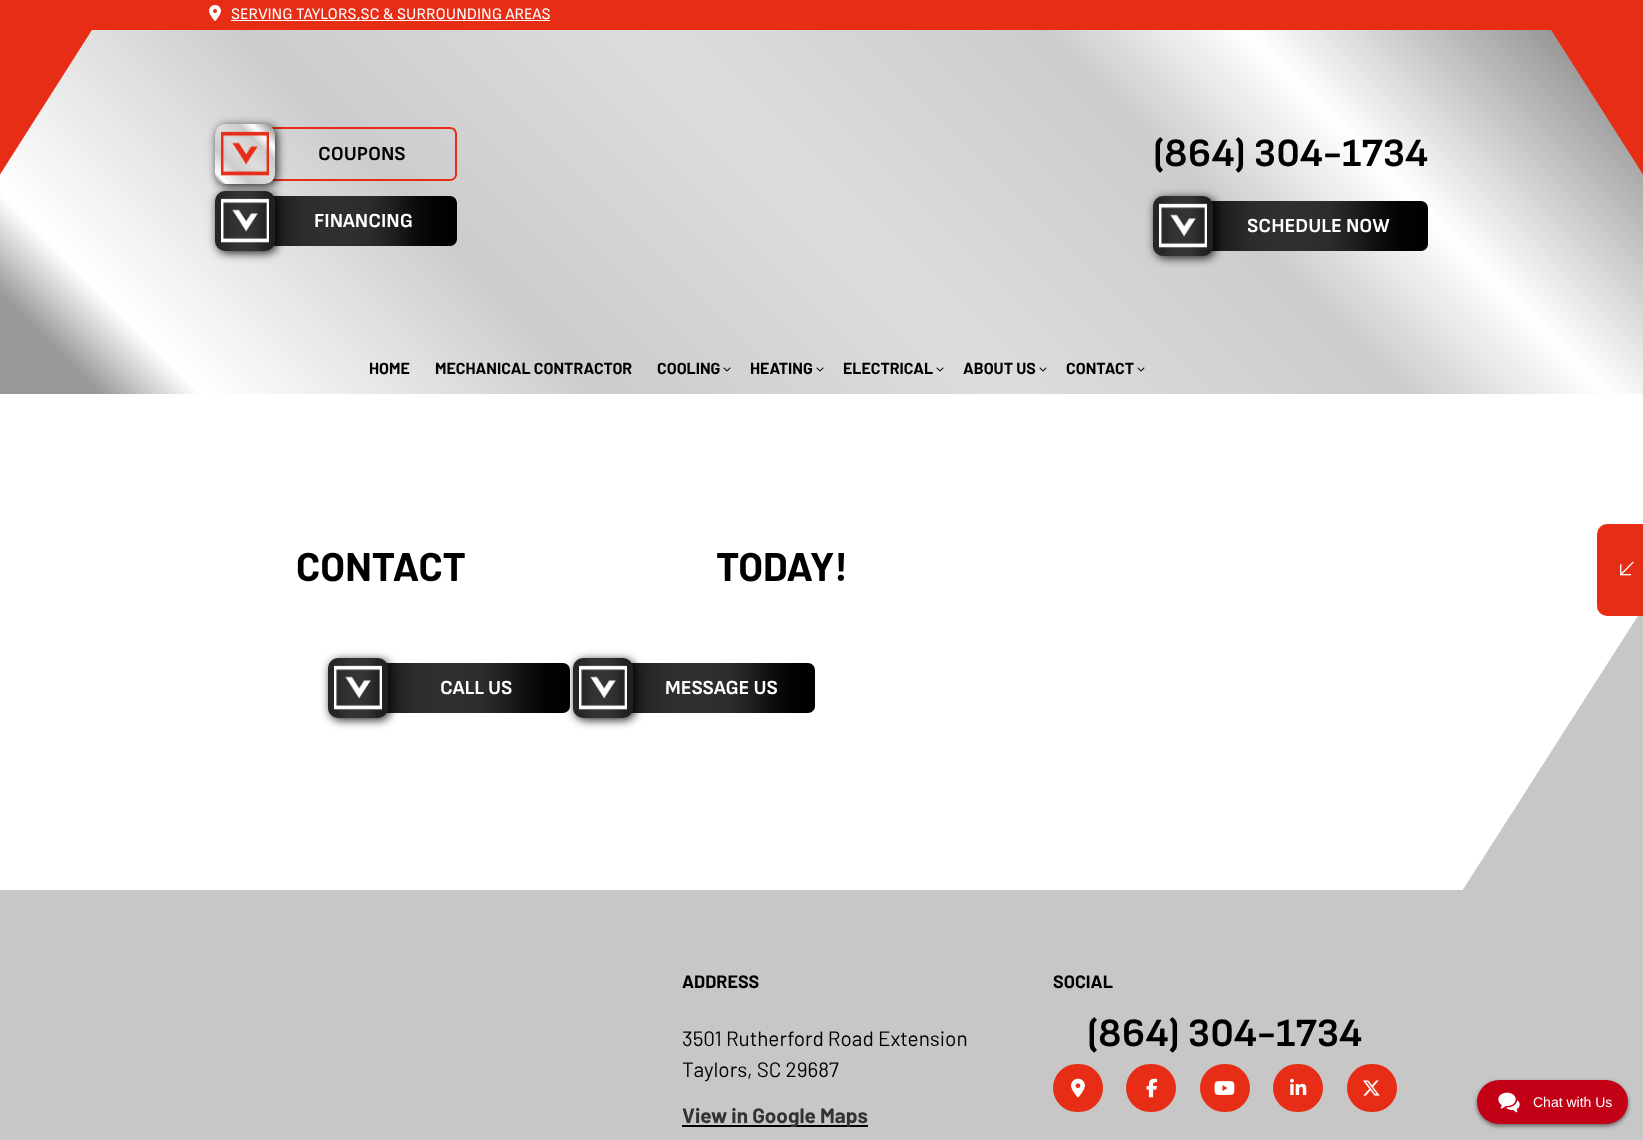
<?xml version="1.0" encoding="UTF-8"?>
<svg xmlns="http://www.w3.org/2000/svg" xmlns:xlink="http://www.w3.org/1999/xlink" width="1643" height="1140">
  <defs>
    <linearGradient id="g1" gradientUnits="userSpaceOnUse" x1="319" y1="713" x2="1325" y2="-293"><stop offset="0.05" stop-color="#999999" /><stop offset="0.1" stop-color="#ffffff" /><stop offset="0.3" stop-color="#cccccc" /><stop offset="0.5" stop-color="#dddddd" /><stop offset="0.7" stop-color="#cccccc" /><stop offset="0.8" stop-color="#ffffff" /><stop offset="0.95" stop-color="#999999" /></linearGradient>
    <linearGradient id="g2" gradientUnits="userSpaceOnUse" x1="215" y1="184" x2="275" y2="124"><stop offset="0.05" stop-color="#999999" /><stop offset="0.1" stop-color="#ffffff" /><stop offset="0.3" stop-color="#cccccc" /><stop offset="0.5" stop-color="#dddddd" /><stop offset="0.7" stop-color="#cccccc" /><stop offset="0.8" stop-color="#ffffff" /><stop offset="0.95" stop-color="#999999" /></linearGradient>
    <linearGradient id="g3" gradientUnits="userSpaceOnUse" x1="215" y1="221" x2="457" y2="221"><stop offset="0" stop-color="#000000" /><stop offset="0.09" stop-color="#020202" /><stop offset="0.18" stop-color="#0d0d0d" /><stop offset="0.27" stop-color="#202020" /><stop offset="0.36" stop-color="#2c2c2c" /><stop offset="0.45" stop-color="#2f2f2f" /><stop offset="0.55" stop-color="#2f2f2f" /><stop offset="0.64" stop-color="#2c2c2c" /><stop offset="0.73" stop-color="#202020" /><stop offset="0.82" stop-color="#0d0d0d" /><stop offset="0.91" stop-color="#020202" /><stop offset="1" stop-color="#000000" /></linearGradient>
    <linearGradient id="g4" gradientUnits="userSpaceOnUse" x1="215" y1="221" x2="275" y2="221"><stop offset="0" stop-color="#272626" /><stop offset="0.09" stop-color="#272626" /><stop offset="0.18" stop-color="#292929" /><stop offset="0.27" stop-color="#2f2f2f" /><stop offset="0.36" stop-color="#333333" /><stop offset="0.45" stop-color="#343434" /><stop offset="0.55" stop-color="#343434" /><stop offset="0.64" stop-color="#323232" /><stop offset="0.73" stop-color="#2c2c2c" /><stop offset="0.82" stop-color="#242424" /><stop offset="0.91" stop-color="#202020" /><stop offset="1" stop-color="#202020" /></linearGradient>
    <linearGradient id="g5" gradientUnits="userSpaceOnUse" x1="1153" y1="226" x2="1428" y2="226"><stop offset="0" stop-color="#000000" /><stop offset="0.09" stop-color="#020202" /><stop offset="0.18" stop-color="#0d0d0d" /><stop offset="0.27" stop-color="#202020" /><stop offset="0.36" stop-color="#2c2c2c" /><stop offset="0.45" stop-color="#2f2f2f" /><stop offset="0.55" stop-color="#2f2f2f" /><stop offset="0.64" stop-color="#2c2c2c" /><stop offset="0.73" stop-color="#202020" /><stop offset="0.82" stop-color="#0d0d0d" /><stop offset="0.91" stop-color="#020202" /><stop offset="1" stop-color="#000000" /></linearGradient>
    <linearGradient id="g6" gradientUnits="userSpaceOnUse" x1="1153" y1="226" x2="1213" y2="226"><stop offset="0" stop-color="#272626" /><stop offset="0.09" stop-color="#272626" /><stop offset="0.18" stop-color="#292929" /><stop offset="0.27" stop-color="#2f2f2f" /><stop offset="0.36" stop-color="#333333" /><stop offset="0.45" stop-color="#343434" /><stop offset="0.55" stop-color="#343434" /><stop offset="0.64" stop-color="#323232" /><stop offset="0.73" stop-color="#2c2c2c" /><stop offset="0.82" stop-color="#242424" /><stop offset="0.91" stop-color="#202020" /><stop offset="1" stop-color="#202020" /></linearGradient>
    <linearGradient id="g7" gradientUnits="userSpaceOnUse" x1="328" y1="688" x2="570" y2="688"><stop offset="0" stop-color="#000000" /><stop offset="0.09" stop-color="#020202" /><stop offset="0.18" stop-color="#0d0d0d" /><stop offset="0.27" stop-color="#202020" /><stop offset="0.36" stop-color="#2c2c2c" /><stop offset="0.45" stop-color="#2f2f2f" /><stop offset="0.55" stop-color="#2f2f2f" /><stop offset="0.64" stop-color="#2c2c2c" /><stop offset="0.73" stop-color="#202020" /><stop offset="0.82" stop-color="#0d0d0d" /><stop offset="0.91" stop-color="#020202" /><stop offset="1" stop-color="#000000" /></linearGradient>
    <linearGradient id="g8" gradientUnits="userSpaceOnUse" x1="328" y1="688" x2="388" y2="688"><stop offset="0" stop-color="#272626" /><stop offset="0.09" stop-color="#272626" /><stop offset="0.18" stop-color="#292929" /><stop offset="0.27" stop-color="#2f2f2f" /><stop offset="0.36" stop-color="#333333" /><stop offset="0.45" stop-color="#343434" /><stop offset="0.55" stop-color="#343434" /><stop offset="0.64" stop-color="#323232" /><stop offset="0.73" stop-color="#2c2c2c" /><stop offset="0.82" stop-color="#242424" /><stop offset="0.91" stop-color="#202020" /><stop offset="1" stop-color="#202020" /></linearGradient>
    <linearGradient id="g9" gradientUnits="userSpaceOnUse" x1="573" y1="688" x2="815" y2="688"><stop offset="0" stop-color="#000000" /><stop offset="0.09" stop-color="#020202" /><stop offset="0.18" stop-color="#0d0d0d" /><stop offset="0.27" stop-color="#202020" /><stop offset="0.36" stop-color="#2c2c2c" /><stop offset="0.45" stop-color="#2f2f2f" /><stop offset="0.55" stop-color="#2f2f2f" /><stop offset="0.64" stop-color="#2c2c2c" /><stop offset="0.73" stop-color="#202020" /><stop offset="0.82" stop-color="#0d0d0d" /><stop offset="0.91" stop-color="#020202" /><stop offset="1" stop-color="#000000" /></linearGradient>
    <linearGradient id="g10" gradientUnits="userSpaceOnUse" x1="573" y1="688" x2="633" y2="688"><stop offset="0" stop-color="#272626" /><stop offset="0.09" stop-color="#272626" /><stop offset="0.18" stop-color="#292929" /><stop offset="0.27" stop-color="#2f2f2f" /><stop offset="0.36" stop-color="#333333" /><stop offset="0.45" stop-color="#343434" /><stop offset="0.55" stop-color="#343434" /><stop offset="0.64" stop-color="#323232" /><stop offset="0.73" stop-color="#2c2c2c" /><stop offset="0.82" stop-color="#242424" /><stop offset="0.91" stop-color="#202020" /><stop offset="1" stop-color="#202020" /></linearGradient>
  </defs>
  <rect width="100%" height="100%" fill="#ffffff" />
  <rect y="30" width="1643" height="364" fill="url(#g1)" />
  <path d="M -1 176 v -176 h 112 z" fill="#e72d15" />
  <rect x="92" width="1460" height="30" fill="#e72d15" />
  <image x="209" y="5" width="12" height="16" xlink:href="image1.png" />
  <rect x="231" y="20" width="319" height="1" fill="#ffffff" />
  <path d="M 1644 176 v -176 h -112 z" fill="#e72d15" />
  <path d="M 222 127 h 228 c 4 0 7 3 7 7 v 40 c 0 4 -3 7 -7 7 h -228 c -4 0 -7 -3 -7 -7 v -40 c 0 -4 3 -7 7 -7 z m 0 2 h 228 c 3 0 5 2 5 5 v 40 c 0 3 -2 5 -5 5 h -228 c -4 0 -7 -2 -7 -5 v -40 c 0 -3 3 -5 7 -5 z" fill="#e72d15" fill-rule="evenodd" />
  <rect x="217" y="126" width="60" height="60" rx="10" fill="#000000" fill-opacity="0.86" filter="blur(5px)" />
  <rect x="215" y="124" width="60" height="60" rx="10" fill="url(#g2)" />
  <image x="221" y="131" width="48" height="45" xlink:href="image2.png" />
  <rect x="215" y="196" width="242" height="50" rx="7" fill="url(#g3)" />
  <rect x="217" y="193" width="60" height="60" rx="10" fill="#000000" fill-opacity="0.86" filter="blur(5px)" />
  <rect x="215" y="191" width="60" height="60" rx="10" fill="url(#g4)" />
  <image x="221" y="198" width="48" height="45" xlink:href="image3.png" />
  <rect x="1153" y="201" width="275" height="50" rx="7" fill="url(#g5)" />
  <rect x="1155" y="198" width="60" height="60" rx="10" fill="#000000" fill-opacity="0.86" filter="blur(5px)" />
  <rect x="1153" y="196" width="60" height="60" rx="10" fill="url(#g6)" />
  <image x="1159" y="203" width="48" height="45" xlink:href="image3.png" />
  <image x="723" y="367" width="8" height="5" xlink:href="image4.png" />
  <image x="816" y="367" width="8" height="5" xlink:href="image5.png" />
  <image x="936" y="367" width="8" height="5" xlink:href="image6.png" />
  <image x="1039" y="367" width="8" height="5" xlink:href="image7.png" />
  <image x="1137" y="367" width="8" height="5" xlink:href="image5.png" />
  <rect x="328" y="663" width="242" height="50" rx="7" fill="url(#g7)" />
  <rect x="330" y="660" width="60" height="60" rx="10" fill="#000000" fill-opacity="0.86" filter="blur(5px)" />
  <rect x="328" y="658" width="60" height="60" rx="10" fill="url(#g8)" />
  <image x="334" y="665" width="48" height="45" xlink:href="image3.png" />
  <rect x="573" y="663" width="242" height="50" rx="7" fill="url(#g9)" />
  <rect x="575" y="660" width="60" height="60" rx="10" fill="#000000" fill-opacity="0.86" filter="blur(5px)" />
  <rect x="573" y="658" width="60" height="60" rx="10" fill="url(#g10)" />
  <image x="579" y="665" width="48" height="45" xlink:href="image3.png" />
  <rect y="890" width="1643" height="250" fill="#c7c7c7" />
  <path d="M 1643 608 v 358 h -229 z" fill="#c7c7c7" />
  <rect x="682" y="1125" width="186" height="2" fill="#000000" />
  <rect x="1053" y="1064" width="50" height="48" rx="24" fill="#e72d15" />
  <image x="1071" y="1078" width="14" height="20" xlink:href="image8.png" />
  <rect x="1126" y="1064" width="50" height="48" rx="24" fill="#e72d15" />
  <image x="1146" y="1078" width="12" height="20" xlink:href="image9.png" />
  <rect x="1200" y="1064" width="50" height="48" rx="24" fill="#e72d15" />
  <image x="1214" y="1081" width="21" height="14" xlink:href="image10.png" />
  <rect x="1273" y="1064" width="50" height="48" rx="24" fill="#e72d15" />
  <image x="1290" y="1078" width="17" height="17" xlink:href="image11.png" />
  <rect x="1347" y="1064" width="50" height="48" rx="24" fill="#e72d15" />
  <image x="1363" y="1080" width="17" height="16" xlink:href="image12.png" />
  <rect x="1477" y="1082" width="151" height="44" rx="22" fill="#000000" fill-opacity="0.5" filter="blur(2px)" />
  <rect x="1477" y="1080" width="151" height="44" rx="22" fill="#c30116" />
  <image x="1498" y="1092" width="22" height="21" xlink:href="image13.png" />
  <rect x="1597" y="524" width="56" height="92" rx="10" fill="#e72d15" />
  <image x="1620" y="561" width="14" height="15" xlink:href="image14.png" />
  <text x="231" y="19" style="font-family: Sofia Sans; font-size: 16px; fill: #ffffff">SERVING TAYLORS,SC &amp; SURROUNDING AREAS</text>
  <text x="318" y="160" style="font-family: Sofia Sans; font-size: 20px; font-weight: bold; fill: #000000">COUPONS</text>
  <text x="314" y="227" style="font-family: Sofia Sans; font-size: 20px; font-weight: bold; fill: #ffffff">FINANCING</text>
  <text x="1153" y="166" style="font-family: Sofia Sans; font-size: 40px; font-weight: bold; fill: #000000">(864) 304-1734</text>
  <text x="1247" y="232" style="font-family: Sofia Sans; font-size: 20px; font-weight: bold; fill: #ffffff">SCHEDULE NOW</text>
  <text x="369" y="374" style="font-family: Barlow; font-size: 16px; font-weight: bold; fill: #000000">HOME</text>
  <text x="435" y="374" style="font-family: Barlow; font-size: 16px; font-weight: bold; fill: #000000">MECHANICAL CONTRACTOR</text>
  <text x="657" y="374" style="font-family: Barlow; font-size: 16px; font-weight: bold; fill: #000000">COOLING</text>
  <text x="750" y="374" style="font-family: Barlow; font-size: 16px; font-weight: bold; fill: #000000">HEATING</text>
  <text x="843" y="374" style="font-family: Barlow; font-size: 16px; font-weight: bold; fill: #000000">ELECTRICAL</text>
  <text x="963" y="374" style="font-family: Barlow; font-size: 16px; font-weight: bold; fill: #000000">ABOUT US</text>
  <text x="1066" y="374" style="font-family: Barlow; font-size: 16px; font-weight: bold; fill: #000000">CONTACT</text>
  <text x="296" y="581" style="font-family: Barlow; font-size: 40px; font-weight: bold; fill: #000000">CONTACT</text>
  <text x="716" y="581" style="font-family: Barlow; font-size: 40px; font-weight: bold; fill: #000000">TODAY!</text>
  <text x="440" y="694" style="font-family: Sofia Sans; font-size: 20px; font-weight: bold; fill: #ffffff">CALL US</text>
  <text x="665" y="694" style="font-family: Sofia Sans; font-size: 20px; font-weight: bold; fill: #ffffff">MESSAGE US</text>
  <text x="682" y="988" style="font-family: Barlow; font-size: 18px; font-weight: bold; fill: #000000">ADDRESS</text>
  <text x="682" y="1046" style="font-family: Barlow; font-size: 20.75px; fill: #000000">3501 Rutherford Road Extension</text>
  <text x="682" y="1077" style="font-family: Barlow; font-size: 20.75px; fill: #000000">Taylors, SC 29687</text>
  <text x="682" y="1123" style="font-family: Barlow; font-size: 20.75px; font-weight: bold; fill: #333333">View in Google Maps</text>
  <text x="1053" y="988" style="font-family: Barlow; font-size: 18px; font-weight: bold; fill: #000000">SOCIAL</text>
  <text x="1087" y="1046" style="font-family: Sofia Sans; font-size: 40px; font-weight: bold; fill: #000000">(864) 304-1734</text>
  <text x="1533" y="1107" style="font-family: Liberation Sans; font-size: 14px; fill: #ffffff">Chat with Us</text>
</svg>
